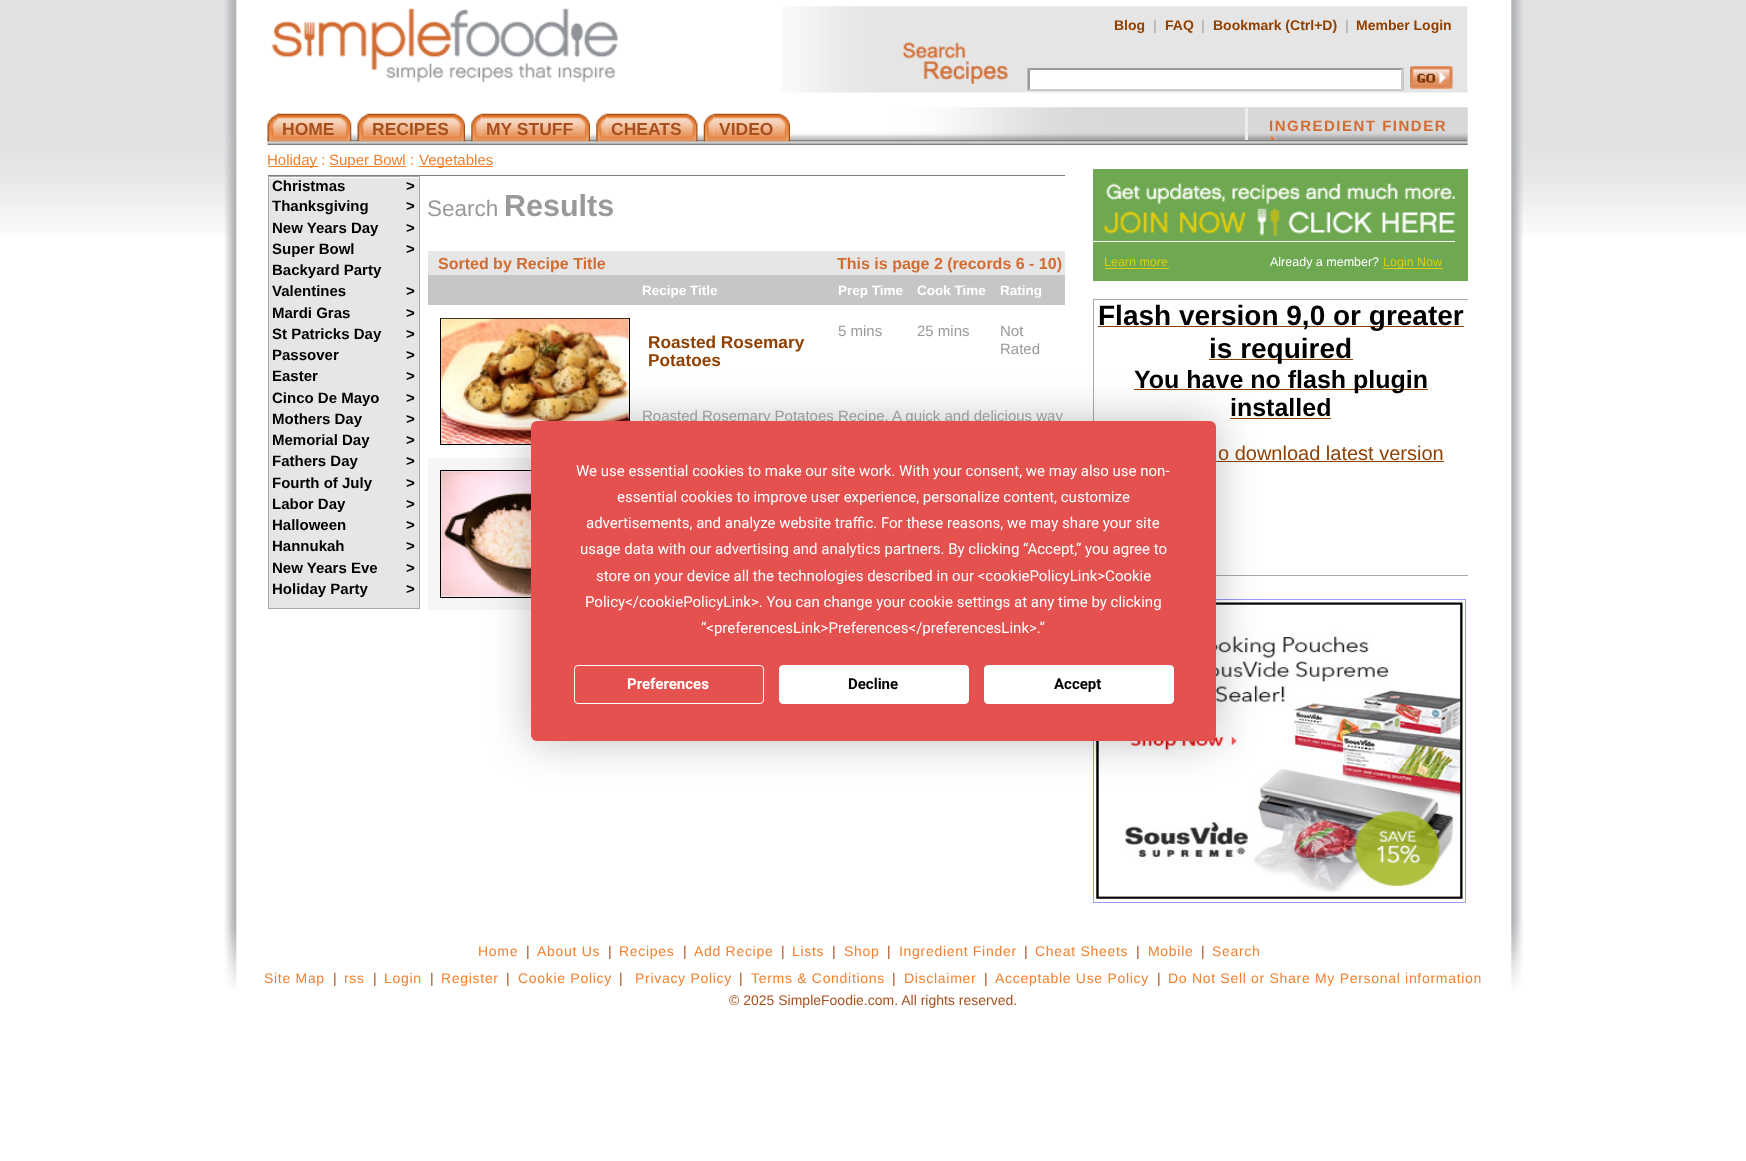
<?xml version="1.0" encoding="UTF-8"?>
<svg xmlns="http://www.w3.org/2000/svg" xmlns:xlink="http://www.w3.org/1999/xlink" width="1746" height="1161">
  <defs>
    <clipPath id="clip1"><rect x="1093" y="145" width="375" height="775" /></clipPath>
  </defs>
  <rect width="100%" height="100%" fill="#ffffff" />
  <image x="0" y="0" width="1746" height="235" xlink:href="image1.png" />
  <image x="224" y="0" width="1299" height="920" xlink:href="image2.png" />
  <image x="781" y="6" width="687" height="87" xlink:href="image3.png" />
  <image x="271" y="8" width="347" height="75" xlink:href="image4.png" />
  <image x="902" y="42" width="106" height="42" xlink:href="image5.png" />
  <rect x="1028" y="68" width="376" height="23" fill="#ffffff" />
  <path d="M 1028 68 h 376 l -3 2 h -371 z" fill="#999999" />
  <path d="M 1404 67.5 v 23.5 l -3 -2 v -19 z" fill="#cccccc" />
  <path d="M 1404 91 h -376 l 2 -2 h 371 z" fill="#cccccc" />
  <path d="M 1027.5 91 v -23.5 l 2.5 2.5 v 19 z" fill="#999999" />
  <image x="1410" y="66" width="43" height="23" xlink:href="image6.png" />
  <image x="944" y="107" width="524" height="38" xlink:href="image7.png" />
  <image x="267" y="107" width="1201" height="38" xlink:href="image8.png" />
  <image x="267" y="113" width="12" height="29" xlink:href="image9.png" />
  <image x="277" y="113" width="75" height="29" xlink:href="image10.png" />
  <image x="357" y="113" width="12" height="29" xlink:href="image11.png" />
  <image x="367" y="113" width="98" height="29" xlink:href="image12.png" />
  <image x="471" y="113" width="11" height="29" xlink:href="image13.png" />
  <image x="481" y="113" width="109" height="29" xlink:href="image14.png" />
  <image x="596" y="113" width="11" height="29" xlink:href="image13.png" />
  <image x="606" y="113" width="92" height="29" xlink:href="image15.png" />
  <image x="703" y="113" width="11" height="29" xlink:href="image16.png" />
  <image x="713" y="113" width="77" height="29" xlink:href="image17.png" />
  <rect x="1245" y="108" width="3" height="32" fill="#ececec" />
  <image x="1270" y="135" width="7" height="5" xlink:href="image18.png" />
  <rect x="268" y="175" width="797" height="1" fill="#7b7b7b" />
  <rect x="268" y="166" width="50" height="1" fill="#f18030" />
  <rect x="330" y="166" width="76" height="1" fill="#f18030" />
  <rect x="419" y="166" width="74" height="1" fill="#f18030" />
  <rect x="268.5" y="176.5" width="151" height="432" fill="none" stroke="#a9a9a9" />
  <rect x="269" y="178" width="150" height="430" fill="#e6e6e6" />
  <rect x="428" y="251" width="637" height="24" fill="#e6e6e6" />
  <rect x="428" y="275" width="637" height="30" fill="#c6c6c6" />
  <rect x="440.5" y="318.5" width="189" height="126" fill="none" stroke="#000000" />
  <image x="441" y="318" width="188" height="126" xlink:href="image19.png" />
  <rect x="428" y="458" width="103" height="152" fill="#f5f5f5" />
  <rect x="440.5" y="470.5" width="189" height="127" fill="none" stroke="#000000" />
  <image x="441" y="471" width="90" height="126" xlink:href="image20.png" />
  <rect x="1093" y="169" width="375" height="112" fill="#6ea851" />
  <image x="1103" y="183" width="353" height="54" xlink:href="image21.png" />
  <rect x="1093" y="241" width="362" height="1" fill="#ffffff" />
  <rect x="1105" y="268" width="64" height="1" fill="#decd0f" />
  <rect x="1383" y="268" width="60" height="1" fill="#decd0f" />
  <g clip-path="url(#clip1)">
    <rect x="1093.5" y="299.5" width="376" height="276" fill="none" stroke="#aaaaaa" />
  </g>
  <rect x="1098" y="326" width="366" height="1" fill="#904001" />
  <rect x="1209" y="359" width="144" height="1" fill="#904001" />
  <rect x="1134" y="389" width="294" height="1" fill="#904001" />
  <rect x="1230" y="418" width="101" height="1" fill="#904001" />
  <rect x="1216" y="461" width="228" height="1" fill="#904001" />
  <rect x="1093.5" y="599.5" width="372" height="303" fill="none" stroke="#9999ff" />
  <image x="1096" y="602" width="367" height="297" xlink:href="image22.png" />
  <rect x="531" y="421" width="685" height="320" rx="6" fill="#000000" fill-opacity="0.25" filter="blur(22px)" />
  <image x="224" y="920" width="1300" height="70" xlink:href="image23.png" />
  <text x="1114" y="30" style="font-family: Liberation Sans; font-size: 14px; font-weight: bold; fill: #904001">Blog</text>
  <text x="1153" y="30" style="font-family: Liberation Sans; font-size: 14px; font-weight: bold; fill: #b9b8b8">|</text>
  <text x="1165" y="30" style="font-family: Liberation Sans; font-size: 14px; font-weight: bold; fill: #904001">FAQ</text>
  <text x="1201" y="30" style="font-family: Liberation Sans; font-size: 14px; font-weight: bold; fill: #b9b8b8">|</text>
  <text x="1213" y="30" style="font-family: Liberation Sans; font-size: 14px; font-weight: bold; fill: #904001">Bookmark (Ctrl+D)</text>
  <text x="1345" y="30" style="font-family: Liberation Sans; font-size: 14px; font-weight: bold; fill: #b9b8b8">|</text>
  <text x="1356" y="30" style="font-family: Liberation Sans; font-size: 14px; font-weight: bold; fill: #904001">Member Login</text>
  <text x="282" y="135" style="font-family: Liberation Sans; font-size: 17.5px; font-weight: bold; fill: #a7501e">HOME</text>
  <text x="372" y="135" style="font-family: Liberation Sans; font-size: 17.5px; font-weight: bold; fill: #a7501e">RECIPES</text>
  <text x="486" y="135" style="font-family: Liberation Sans; font-size: 17.5px; font-weight: bold; fill: #a7501e">MY STUFF</text>
  <text x="611" y="135" style="font-family: Liberation Sans; font-size: 17.5px; font-weight: bold; fill: #a7501e">CHEATS</text>
  <text x="719" y="135" style="font-family: Liberation Sans; font-size: 17.5px; font-weight: bold; fill: #a7501e">VIDEO</text>
  <text x="1269" y="131" style="font-family: Liberation Sans; font-size: 15px; font-weight: bold; letter-spacing: 1.5px; fill: #d26c32">INGREDIENT FINDER</text>
  <text x="267" y="165" style="font-family: Liberation Sans; font-size: 15px; fill: #f18030">Holiday :</text>
  <text x="329" y="165" style="font-family: Liberation Sans; font-size: 15px; fill: #f18030">Super Bowl :</text>
  <text x="419" y="165" style="font-family: Liberation Sans; font-size: 15px; fill: #f18030">Vegetables</text>
  <text x="272" y="191" style="font-family: Liberation Sans; font-size: 15px; font-weight: bold; fill: #000000">Christmas</text>
  <text x="406" y="191" style="font-family: Liberation Sans; font-size: 15px; font-weight: bold; fill: #000000">&gt;</text>
  <text x="272" y="211" style="font-family: Liberation Sans; font-size: 15px; font-weight: bold; fill: #000000">Thanksgiving</text>
  <text x="406" y="211" style="font-family: Liberation Sans; font-size: 15px; font-weight: bold; fill: #000000">&gt;</text>
  <text x="272" y="233" style="font-family: Liberation Sans; font-size: 15px; font-weight: bold; fill: #000000">New Years Day</text>
  <text x="406" y="233" style="font-family: Liberation Sans; font-size: 15px; font-weight: bold; fill: #000000">&gt;</text>
  <text x="272" y="254" style="font-family: Liberation Sans; font-size: 15px; font-weight: bold; fill: #000000">Super Bowl</text>
  <text x="406" y="254" style="font-family: Liberation Sans; font-size: 15px; font-weight: bold; fill: #000000">&gt;</text>
  <text x="272" y="275" style="font-family: Liberation Sans; font-size: 15px; font-weight: bold; fill: #000000">Backyard Party</text>
  <text x="272" y="296" style="font-family: Liberation Sans; font-size: 15px; font-weight: bold; fill: #000000">Valentines</text>
  <text x="406" y="296" style="font-family: Liberation Sans; font-size: 15px; font-weight: bold; fill: #000000">&gt;</text>
  <text x="272" y="318" style="font-family: Liberation Sans; font-size: 15px; font-weight: bold; fill: #000000">Mardi Gras</text>
  <text x="406" y="318" style="font-family: Liberation Sans; font-size: 15px; font-weight: bold; fill: #000000">&gt;</text>
  <text x="272" y="339" style="font-family: Liberation Sans; font-size: 15px; font-weight: bold; fill: #000000">St Patricks Day</text>
  <text x="406" y="339" style="font-family: Liberation Sans; font-size: 15px; font-weight: bold; fill: #000000">&gt;</text>
  <text x="272" y="360" style="font-family: Liberation Sans; font-size: 15px; font-weight: bold; fill: #000000">Passover</text>
  <text x="406" y="360" style="font-family: Liberation Sans; font-size: 15px; font-weight: bold; fill: #000000">&gt;</text>
  <text x="272" y="381" style="font-family: Liberation Sans; font-size: 15px; font-weight: bold; fill: #000000">Easter</text>
  <text x="406" y="381" style="font-family: Liberation Sans; font-size: 15px; font-weight: bold; fill: #000000">&gt;</text>
  <text x="272" y="403" style="font-family: Liberation Sans; font-size: 15px; font-weight: bold; fill: #000000">Cinco De Mayo</text>
  <text x="406" y="403" style="font-family: Liberation Sans; font-size: 15px; font-weight: bold; fill: #000000">&gt;</text>
  <text x="272" y="424" style="font-family: Liberation Sans; font-size: 15px; font-weight: bold; fill: #000000">Mothers Day</text>
  <text x="406" y="424" style="font-family: Liberation Sans; font-size: 15px; font-weight: bold; fill: #000000">&gt;</text>
  <text x="272" y="445" style="font-family: Liberation Sans; font-size: 15px; font-weight: bold; fill: #000000">Memorial Day</text>
  <text x="406" y="445" style="font-family: Liberation Sans; font-size: 15px; font-weight: bold; fill: #000000">&gt;</text>
  <text x="272" y="466" style="font-family: Liberation Sans; font-size: 15px; font-weight: bold; fill: #000000">Fathers Day</text>
  <text x="406" y="466" style="font-family: Liberation Sans; font-size: 15px; font-weight: bold; fill: #000000">&gt;</text>
  <text x="272" y="488" style="font-family: Liberation Sans; font-size: 15px; font-weight: bold; fill: #000000">Fourth of July</text>
  <text x="406" y="488" style="font-family: Liberation Sans; font-size: 15px; font-weight: bold; fill: #000000">&gt;</text>
  <text x="272" y="509" style="font-family: Liberation Sans; font-size: 15px; font-weight: bold; fill: #000000">Labor Day</text>
  <text x="406" y="509" style="font-family: Liberation Sans; font-size: 15px; font-weight: bold; fill: #000000">&gt;</text>
  <text x="272" y="530" style="font-family: Liberation Sans; font-size: 15px; font-weight: bold; fill: #000000">Halloween</text>
  <text x="406" y="530" style="font-family: Liberation Sans; font-size: 15px; font-weight: bold; fill: #000000">&gt;</text>
  <text x="272" y="551" style="font-family: Liberation Sans; font-size: 15px; font-weight: bold; fill: #000000">Hannukah</text>
  <text x="406" y="551" style="font-family: Liberation Sans; font-size: 15px; font-weight: bold; fill: #000000">&gt;</text>
  <text x="272" y="573" style="font-family: Liberation Sans; font-size: 15px; font-weight: bold; fill: #000000">New Years Eve</text>
  <text x="406" y="573" style="font-family: Liberation Sans; font-size: 15px; font-weight: bold; fill: #000000">&gt;</text>
  <text x="272" y="594" style="font-family: Liberation Sans; font-size: 15px; font-weight: bold; fill: #000000">Holiday Party</text>
  <text x="406" y="594" style="font-family: Liberation Sans; font-size: 15px; font-weight: bold; fill: #000000">&gt;</text>
  <text x="427" y="216" style="font-family: Liberation Sans; font-size: 22.5px; fill: #999999">Search</text>
  <text x="504" y="216" style="font-family: Liberation Sans; font-size: 30.5px; font-weight: bold; fill: #999999">Results</text>
  <text x="438" y="269" style="font-family: Liberation Sans; font-size: 16px; font-weight: bold; fill: #d26c32">Sorted by Recipe Title</text>
  <text x="837" y="269" style="font-family: Liberation Sans; font-size: 16px; font-weight: bold; fill: #d26c32">This is page 2 (records 6 - 10)</text>
  <text x="642" y="295" style="font-family: Liberation Sans; font-size: 13.5px; font-weight: bold; fill: #ffffff">Recipe Title</text>
  <text x="838" y="295" style="font-family: Liberation Sans; font-size: 13.5px; font-weight: bold; fill: #ffffff">Prep Time</text>
  <text x="917" y="295" style="font-family: Liberation Sans; font-size: 13.5px; font-weight: bold; fill: #ffffff">Cook Time</text>
  <text x="1000" y="295" style="font-family: Liberation Sans; font-size: 13.5px; font-weight: bold; fill: #ffffff">Rating</text>
  <text x="648" y="348" style="font-family: Liberation Sans; font-size: 17.25px; font-weight: bold; fill: #904001">Roasted Rosemary</text>
  <text x="648" y="366" style="font-family: Liberation Sans; font-size: 17.25px; font-weight: bold; fill: #904001">Potatoes</text>
  <text x="838" y="336" style="font-family: Liberation Sans; font-size: 15px; fill: #999999">5 mins</text>
  <text x="917" y="336" style="font-family: Liberation Sans; font-size: 15px; fill: #999999">25 mins</text>
  <text x="1000" y="336" style="font-family: Liberation Sans; font-size: 15px; fill: #999999">Not</text>
  <text x="1000" y="354" style="font-family: Liberation Sans; font-size: 15px; fill: #999999">Rated</text>
  <text x="642" y="421" style="font-family: Liberation Sans; font-size: 15px; fill: #999999">Roasted Rosemary Potatoes Recipe.</text>
  <text x="892" y="421" style="font-family: Liberation Sans; font-size: 15px; fill: #999999">A quick and delicious way</text>
  <text x="1104" y="266" style="font-family: Liberation Sans; font-size: 12.5px; fill: #decd0f">Learn more</text>
  <text x="1270" y="266" style="font-family: Liberation Sans; font-size: 12.5px; fill: #ffffff">Already a member?</text>
  <text x="1383" y="266" style="font-family: Liberation Sans; font-size: 12.5px; fill: #decd0f">Login Now</text>
  <text x="1098" y="325" style="font-family: Liberation Sans; font-size: 28px; font-weight: bold; fill: #000000">Flash version 9,0 or greater</text>
  <text x="1209" y="358" style="font-family: Liberation Sans; font-size: 28px; font-weight: bold; fill: #000000">is required</text>
  <text x="1134" y="388" style="font-family: Liberation Sans; font-size: 25px; font-weight: bold; fill: #000000">You have no flash plugin</text>
  <text x="1230" y="416" style="font-family: Liberation Sans; font-size: 25px; font-weight: bold; fill: #000000">installed</text>
  <text x="1218" y="460" style="font-family: Liberation Sans; font-size: 20px; fill: #904001">o download latest version</text>
  <rect x="531" y="421" width="685" height="320" rx="6" fill="#e4514f" />
  <text x="576" y="476" style="font-family: Roboto; font-size: 15px; fill: #ffffff">We use essential cookies to make our site work. With your consent, we may also use non-</text>
  <text x="617" y="502" style="font-family: Roboto; font-size: 15px; fill: #ffffff">essential cookies to improve user experience, personalize content, customize</text>
  <text x="586" y="528" style="font-family: Roboto; font-size: 15px; fill: #ffffff">advertisements, and analyze website traffic. For these reasons, we may share your site</text>
  <text x="580" y="554" style="font-family: Roboto; font-size: 15px; fill: #ffffff">usage data with our advertising and analytics partners. By clicking “Accept,” you agree to</text>
  <text x="596" y="581" style="font-family: Roboto; font-size: 15px; fill: #ffffff">store on your device all the technologies described in our &lt;cookiePolicyLink&gt;Cookie</text>
  <text x="585" y="607" style="font-family: Roboto; font-size: 15px; fill: #ffffff">Policy&lt;/cookiePolicyLink&gt;. You can change your cookie settings at any time by clicking</text>
  <text x="701" y="633" style="font-family: Roboto; font-size: 15px; fill: #ffffff">“&lt;preferencesLink&gt;Preferences&lt;/preferencesLink&gt;.”</text>
  <rect x="574.5" y="665.5" width="189" height="38" rx="3.5" fill="none" stroke="#ffffff" />
  <text x="627" y="689" style="font-family: Roboto; font-size: 15px; font-weight: bold; fill: #ffffff">Preferences</text>
  <rect x="779.5" y="665.5" width="189" height="38" rx="3.5" fill="#ffffff" stroke="#ffffff" />
  <text x="848" y="689" style="font-family: Roboto; font-size: 15px; font-weight: bold; fill: #000000">Decline</text>
  <rect x="984.5" y="665.5" width="189" height="38" rx="3.5" fill="#ffffff" stroke="#ffffff" />
  <text x="1054" y="689" style="font-family: Roboto; font-size: 15px; font-weight: bold; fill: #000000">Accept</text>
  <text x="478" y="956" style="font-family: Liberation Sans; font-size: 14px; letter-spacing: 0.7px; fill: #f18030">Home</text>
  <text x="526" y="956" style="font-family: Liberation Sans; font-size: 14px; fill: #a7501e">|</text>
  <text x="537" y="956" style="font-family: Liberation Sans; font-size: 14px; letter-spacing: 0.7px; fill: #f18030">About Us</text>
  <text x="608" y="956" style="font-family: Liberation Sans; font-size: 14px; fill: #a7501e">|</text>
  <text x="619" y="956" style="font-family: Liberation Sans; font-size: 14px; letter-spacing: 0.7px; fill: #f18030">Recipes</text>
  <text x="683" y="956" style="font-family: Liberation Sans; font-size: 14px; fill: #a7501e">|</text>
  <text x="694" y="956" style="font-family: Liberation Sans; font-size: 14px; letter-spacing: 0.7px; fill: #f18030">Add Recipe</text>
  <text x="781" y="956" style="font-family: Liberation Sans; font-size: 14px; fill: #a7501e">|</text>
  <text x="792" y="956" style="font-family: Liberation Sans; font-size: 14px; letter-spacing: 0.7px; fill: #f18030">Lists</text>
  <text x="832" y="956" style="font-family: Liberation Sans; font-size: 14px; fill: #a7501e">|</text>
  <text x="844" y="956" style="font-family: Liberation Sans; font-size: 14px; letter-spacing: 0.7px; fill: #f18030">Shop</text>
  <text x="887" y="956" style="font-family: Liberation Sans; font-size: 14px; fill: #a7501e">|</text>
  <text x="899" y="956" style="font-family: Liberation Sans; font-size: 14px; letter-spacing: 0.7px; fill: #f18030">Ingredient Finder</text>
  <text x="1024" y="956" style="font-family: Liberation Sans; font-size: 14px; fill: #a7501e">|</text>
  <text x="1035" y="956" style="font-family: Liberation Sans; font-size: 14px; letter-spacing: 0.7px; fill: #f18030">Cheat Sheets</text>
  <text x="1136" y="956" style="font-family: Liberation Sans; font-size: 14px; fill: #a7501e">|</text>
  <text x="1148" y="956" style="font-family: Liberation Sans; font-size: 14px; letter-spacing: 0.7px; fill: #f18030">Mobile</text>
  <text x="1201" y="956" style="font-family: Liberation Sans; font-size: 14px; fill: #a7501e">|</text>
  <text x="1212" y="956" style="font-family: Liberation Sans; font-size: 14px; letter-spacing: 0.7px; fill: #f18030">Search</text>
  <text x="264" y="983" style="font-family: Liberation Sans; font-size: 14px; letter-spacing: 0.7px; fill: #f18030">Site Map</text>
  <text x="333" y="983" style="font-family: Liberation Sans; font-size: 14px; fill: #a7501e">|</text>
  <text x="344" y="983" style="font-family: Liberation Sans; font-size: 14px; letter-spacing: 0.7px; fill: #f18030">rss</text>
  <text x="373" y="983" style="font-family: Liberation Sans; font-size: 14px; fill: #a7501e">|</text>
  <text x="384" y="983" style="font-family: Liberation Sans; font-size: 14px; letter-spacing: 0.7px; fill: #f18030">Login</text>
  <text x="430" y="983" style="font-family: Liberation Sans; font-size: 14px; fill: #a7501e">|</text>
  <text x="441" y="983" style="font-family: Liberation Sans; font-size: 14px; letter-spacing: 0.7px; fill: #f18030">Register</text>
  <text x="506" y="983" style="font-family: Liberation Sans; font-size: 14px; fill: #a7501e">|</text>
  <text x="518" y="983" style="font-family: Liberation Sans; font-size: 14px; letter-spacing: 0.7px; fill: #f18030">Cookie Policy</text>
  <text x="619" y="983" style="font-family: Liberation Sans; font-size: 14px; fill: #a7501e">|</text>
  <text x="635" y="983" style="font-family: Liberation Sans; font-size: 14px; letter-spacing: 0.7px; fill: #f18030">Privacy Policy</text>
  <text x="739" y="983" style="font-family: Liberation Sans; font-size: 14px; fill: #a7501e">|</text>
  <text x="751" y="983" style="font-family: Liberation Sans; font-size: 14px; letter-spacing: 0.7px; fill: #f18030">Terms &amp; Conditions</text>
  <text x="892" y="983" style="font-family: Liberation Sans; font-size: 14px; fill: #a7501e">|</text>
  <text x="904" y="983" style="font-family: Liberation Sans; font-size: 14px; letter-spacing: 0.7px; fill: #f18030">Disclaimer</text>
  <text x="984" y="983" style="font-family: Liberation Sans; font-size: 14px; fill: #a7501e">|</text>
  <text x="995" y="983" style="font-family: Liberation Sans; font-size: 14px; letter-spacing: 0.7px; fill: #f18030">Acceptable Use Policy</text>
  <text x="1157" y="983" style="font-family: Liberation Sans; font-size: 14px; fill: #a7501e">|</text>
  <text x="1168" y="983" style="font-family: Liberation Sans; font-size: 14px; letter-spacing: 0.7px; fill: #f18030">Do Not Sell or Share My Personal information</text>
  <text x="729" y="1005" style="font-family: Liberation Sans; font-size: 14px; fill: #a7501e">© 2025 SimpleFoodie.com. All rights reserved.</text>
</svg>
